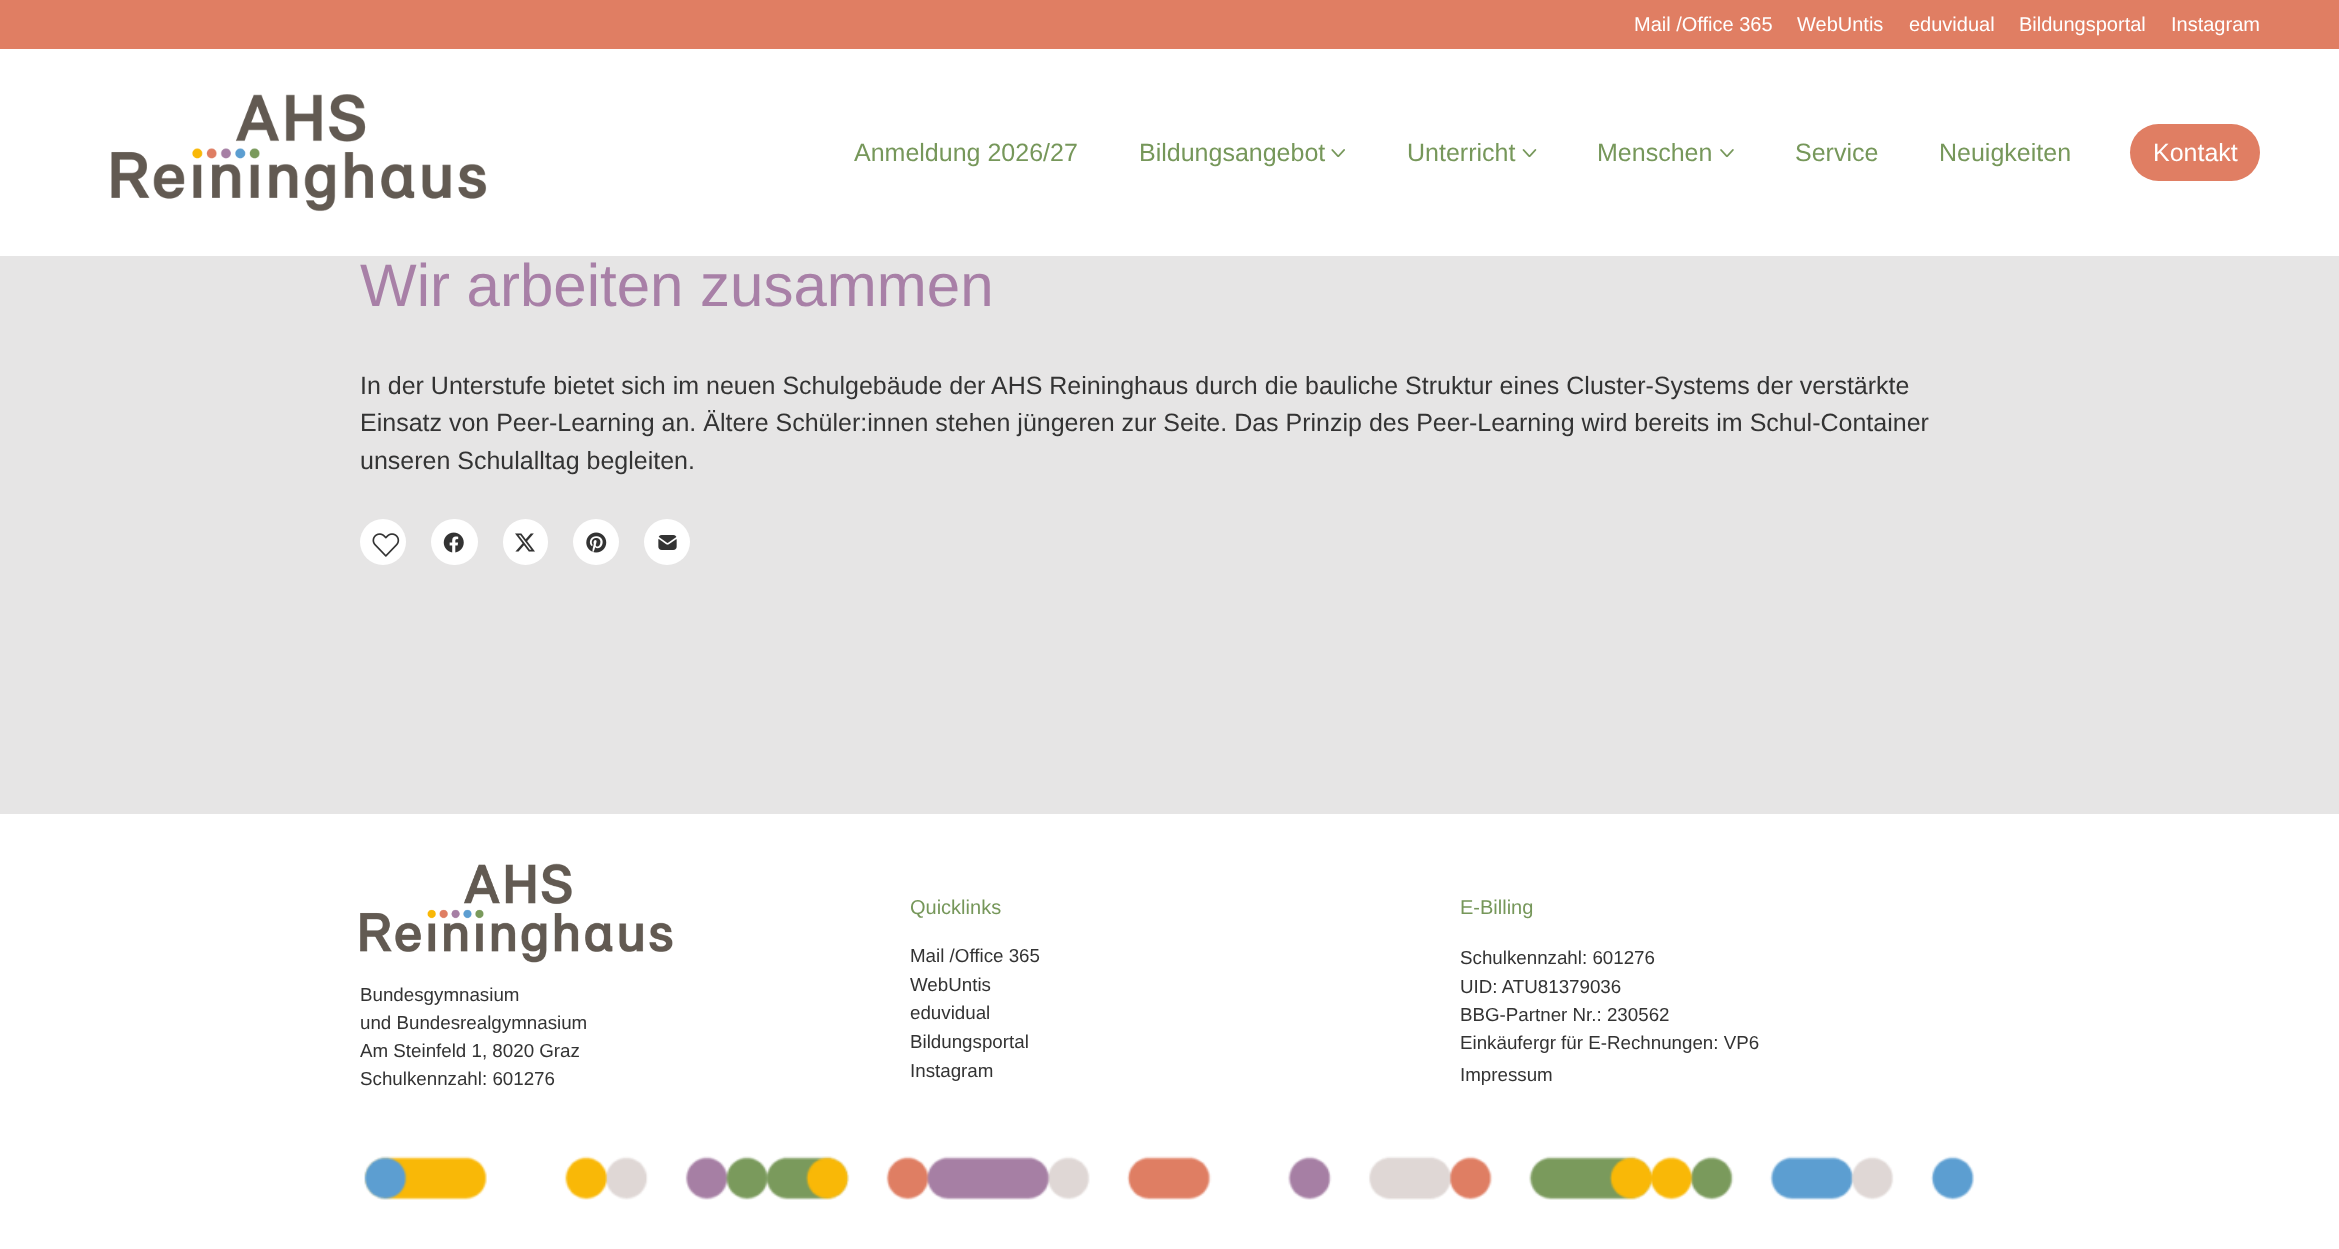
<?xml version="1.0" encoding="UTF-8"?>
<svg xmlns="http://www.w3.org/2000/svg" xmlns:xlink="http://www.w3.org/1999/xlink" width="2339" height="1249">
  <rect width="100%" height="100%" fill="#e6e5e5" />
  <rect width="2339" height="49" fill="#e07e63" />
  <rect y="49" width="2339" height="207" fill="#ffffff" />
  <image x="111" y="94" width="376" height="118" xlink:href="image1.png" />
  <image x="1331" y="149" width="14" height="9" xlink:href="image2.png" />
  <image x="1522" y="149" width="15" height="9" xlink:href="image3.png" />
  <image x="1720" y="149" width="14" height="9" xlink:href="image4.png" />
  <rect x="2130" y="124" width="130" height="57" rx="28.5" fill="#e07e63" />
  <circle cx="383" cy="542" r="23" fill="#ffffff" />
  <image x="372" y="533" width="28" height="24" xlink:href="image5.png" />
  <rect x="431" y="519" width="47" height="46" rx="23" fill="#ffffff" />
  <image x="443" y="532" width="21" height="21" xlink:href="image6.png" />
  <rect x="503" y="519" width="45" height="46" rx="22.5" fill="#ffffff" />
  <image x="515" y="533" width="20" height="19" xlink:href="image7.png" />
  <circle cx="596" cy="542" r="23" fill="#ffffff" />
  <image x="586" y="532" width="21" height="21" xlink:href="image8.png" />
  <circle cx="667" cy="542" r="23" fill="#ffffff" />
  <image x="658" y="535" width="19" height="15" xlink:href="image9.png" />
  <rect y="814" width="2339" height="435" fill="#ffffff" />
  <image x="360" y="863" width="313" height="100" xlink:href="image10.png" />
  <image x="364" y="1156" width="1611" height="44" xlink:href="image11.png" />
  <text x="1634" y="31" style="font-family: Liberation Sans; font-size: 20px; fill: #ffffff">Mail /Office 365</text>
  <text x="1797" y="31" style="font-family: Liberation Sans; font-size: 20px; fill: #ffffff">WebUntis</text>
  <text x="1909" y="31" style="font-family: Liberation Sans; font-size: 20px; fill: #ffffff">eduvidual</text>
  <text x="2019" y="31" style="font-family: Liberation Sans; font-size: 20px; fill: #ffffff">Bildungsportal</text>
  <text x="2171" y="31" style="font-family: Liberation Sans; font-size: 20px; fill: #ffffff">Instagram</text>
  <text x="854" y="161" style="font-family: Liberation Sans; font-size: 25px; fill: #76975a">Anmeldung 2026/27</text>
  <text x="1139" y="161" style="font-family: Liberation Sans; font-size: 25px; fill: #76975a">Bildungsangebot</text>
  <text x="1407" y="161" style="font-family: Liberation Sans; font-size: 25px; fill: #76975a">Unterricht</text>
  <text x="1597" y="161" style="font-family: Liberation Sans; font-size: 25px; fill: #76975a">Menschen</text>
  <text x="1795" y="161" style="font-family: Liberation Sans; font-size: 25px; fill: #76975a">Service</text>
  <text x="1939" y="161" style="font-family: Liberation Sans; font-size: 25px; fill: #76975a">Neuigkeiten</text>
  <text x="2153" y="161" style="font-family: Liberation Sans; font-size: 25px; fill: #ffffff">Kontakt</text>
  <text x="360" y="306" style="font-family: Liberation Sans; font-size: 60px; fill: #a880a7">Wir arbeiten zusammen</text>
  <text x="360" y="394" style="font-family: Liberation Sans; font-size: 25px; fill: #333333">In der Unterstufe bietet sich im neuen Schulgebäude der AHS Reininghaus durch die bauliche Struktur eines Cluster-Systems der verstärkte</text>
  <text x="360" y="431" style="font-family: Liberation Sans; font-size: 25px; fill: #333333">Einsatz von Peer-Learning an. Ältere Schüler:innen stehen jüngeren zur Seite. Das Prinzip des Peer-Learning wird bereits im Schul-Container</text>
  <text x="360" y="469" style="font-family: Liberation Sans; font-size: 25px; fill: #333333">unseren Schulalltag begleiten.</text>
  <text x="360" y="1001" style="font-family: Liberation Sans; font-size: 18.75px; fill: #333333">Bundesgymnasium</text>
  <text x="360" y="1029" style="font-family: Liberation Sans; font-size: 18.75px; fill: #333333">und Bundesrealgymnasium</text>
  <text x="360" y="1057" style="font-family: Liberation Sans; font-size: 18.75px; fill: #333333">Am Steinfeld 1, 8020 Graz</text>
  <text x="360" y="1085" style="font-family: Liberation Sans; font-size: 18.75px; fill: #333333">Schulkennzahl: 601276</text>
  <text x="910" y="914" style="font-family: Liberation Sans; font-size: 20px; fill: #76975a">Quicklinks</text>
  <text x="910" y="962" style="font-family: Liberation Sans; font-size: 18.75px; fill: #333333">Mail /Office 365</text>
  <text x="910" y="991" style="font-family: Liberation Sans; font-size: 18.75px; fill: #333333">WebUntis</text>
  <text x="910" y="1019" style="font-family: Liberation Sans; font-size: 18.75px; fill: #333333">eduvidual</text>
  <text x="910" y="1048" style="font-family: Liberation Sans; font-size: 18.75px; fill: #333333">Bildungsportal</text>
  <text x="910" y="1077" style="font-family: Liberation Sans; font-size: 18.75px; fill: #333333">Instagram</text>
  <text x="1460" y="914" style="font-family: Liberation Sans; font-size: 20px; fill: #76975a">E-Billing</text>
  <text x="1460" y="964" style="font-family: Liberation Sans; font-size: 18.75px; fill: #333333">Schulkennzahl: 601276</text>
  <text x="1460" y="993" style="font-family: Liberation Sans; font-size: 18.75px; fill: #333333">UID: ATU81379036</text>
  <text x="1460" y="1021" style="font-family: Liberation Sans; font-size: 18.75px; fill: #333333">BBG-Partner Nr.: 230562</text>
  <text x="1460" y="1049" style="font-family: Liberation Sans; font-size: 18.75px; fill: #333333">Einkäufergr für E-Rechnungen: VP6</text>
  <text x="1460" y="1081" style="font-family: Liberation Sans; font-size: 18.75px; fill: #333333">Impressum</text>
</svg>
